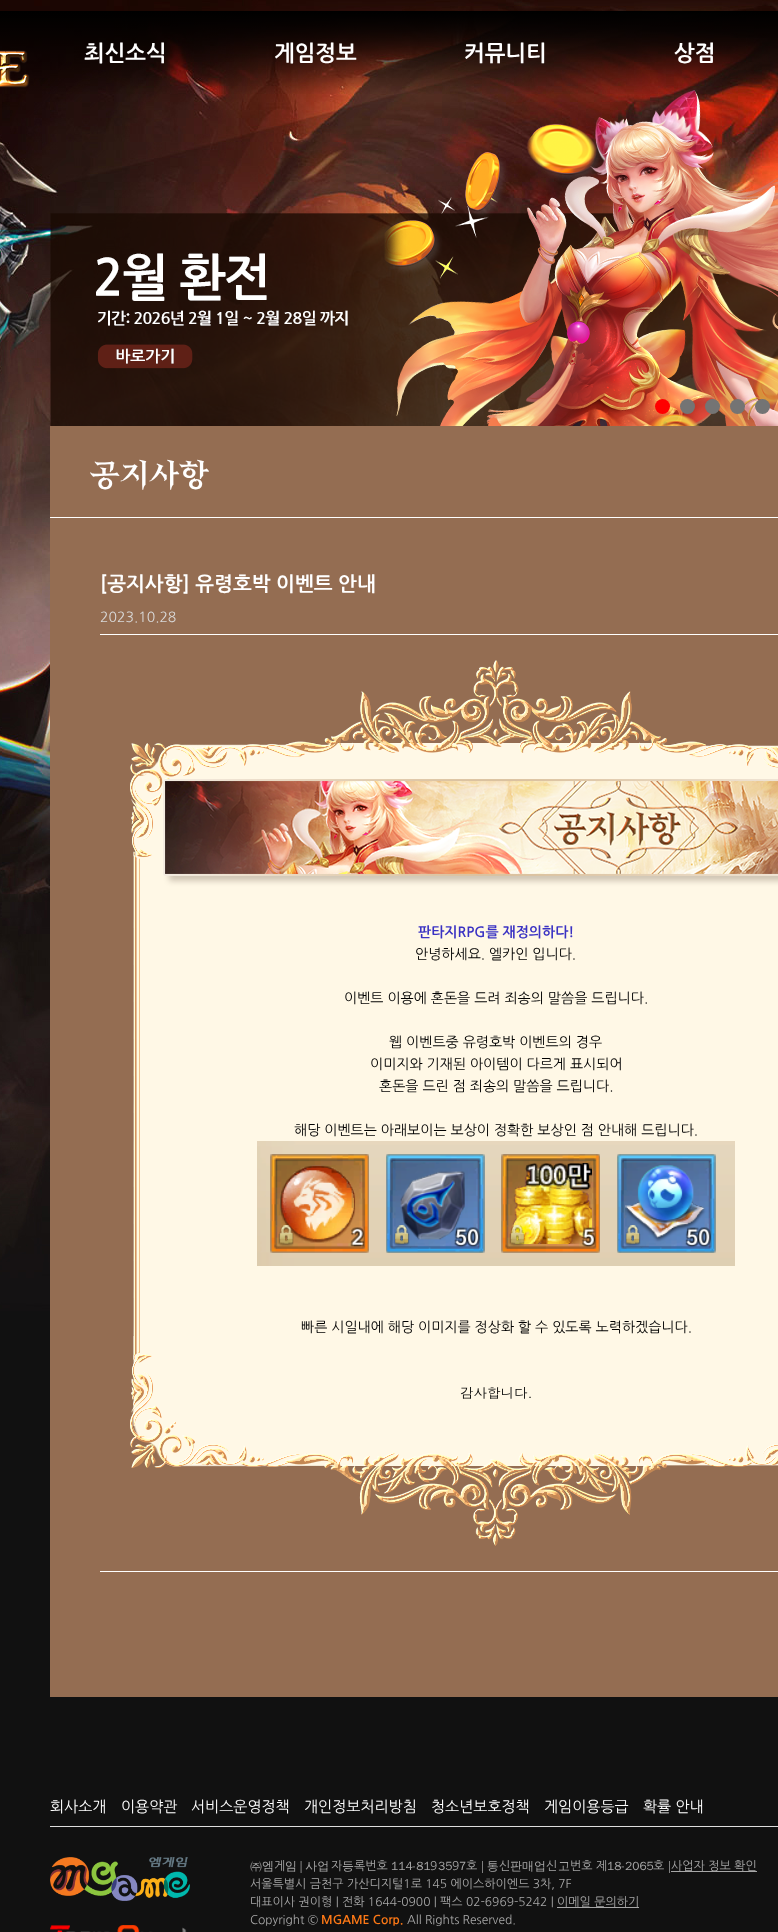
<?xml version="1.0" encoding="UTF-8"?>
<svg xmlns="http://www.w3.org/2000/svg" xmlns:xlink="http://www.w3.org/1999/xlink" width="778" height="1932">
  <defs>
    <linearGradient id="g1" gradientUnits="userSpaceOnUse" x1="389" y1="11" x2="389" y2="96"><stop offset="0" stop-color="#000000" /><stop offset="1" stop-color="#000000" stop-opacity="0" /></linearGradient>
  </defs>
  <rect width="100%" height="100%" fill="#111111" />
  <image x="0" y="0" width="778" height="1311" xlink:href="image1.png" />
  <image x="50" y="90" width="728" height="336" xlink:href="image3.png" />
  <rect y="11" width="778" height="83" fill="url(#g1)" />
  <image x="0" y="50" width="30" height="38" xlink:href="image2.png" />
  <circle cx="662.5" cy="406.5" r="7.5" fill="#ff0000" />
  <circle cx="687.5" cy="406.5" r="7.5" fill="#747474" />
  <circle cx="712.5" cy="406.5" r="7.5" fill="#747474" />
  <circle cx="737.5" cy="406.5" r="7.5" fill="#747474" />
  <circle cx="762.5" cy="406.5" r="7.5" fill="#747474" />
  <rect x="50" y="426" width="728" height="91" fill="#946d52" />
  <rect x="50" y="517" width="728" height="1" fill="#ffffff" />
  <rect x="50" y="518" width="728" height="1179" fill="#946d52" />
  <rect x="100" y="634" width="678" height="1" fill="#ffffff" />
  <rect x="100" y="1571" width="678" height="1" fill="#ffffff" />
  <image x="130" y="660" width="648" height="231" xlink:href="image4.png" />
  <image x="133" y="891" width="645" height="535" xlink:href="image5.png" />
  <image x="257" y="1141" width="478" height="125" xlink:href="image6.png" />
  <image x="130" y="1336" width="648" height="210" xlink:href="image7.png" />
  <rect x="50" y="1826" width="728" height="1" fill="#dddddd" />
  <image x="50" y="1857" width="140" height="44" xlink:href="image8.png" />
  <image x="50" y="1925" width="137" height="7" xlink:href="image9.png" />
  <rect x="671" y="1871" width="86" height="1" fill="#a7a7a7" />
  <rect x="557" y="1907" width="82" height="1" fill="#a7a7a7" />
  <text x="84" y="61" style="font-family: NanumGothic; font-size: 22px; font-weight: bold; fill: #ffffff">최신소식</text>
  <text x="274" y="61" style="font-family: NanumGothic; font-size: 22px; font-weight: bold; fill: #ffffff">게임정보</text>
  <text x="464" y="61" style="font-family: NanumGothic; font-size: 22px; font-weight: bold; fill: #ffffff">커뮤니티</text>
  <text x="674" y="61" style="font-family: NanumGothic; font-size: 22px; font-weight: bold; fill: #ffffff">상점</text>
  <text x="90" y="486" style="font-family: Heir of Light; font-size: 30px; font-weight: 300; fill: #ffffff">공지사항</text>
  <text x="100" y="591" style="font-family: NanumGothic; font-size: 20px; font-weight: bold; fill: #ffffff">[공지사항] 유령호박 이벤트 안내</text>
  <text x="100" y="622" style="font-family: NanumGothic; font-size: 14px; fill: #d9d9d9">2023.10.28</text>
  <text x="418" y="937" style="font-family: NanumGothic; font-size: 14px; font-weight: bold; fill: #3a32c3">판타지RPG를 재정의하다!</text>
  <text x="415" y="959" style="font-family: NanumGothic; font-size: 14px; fill: #000000">안녕하세요. 엘카인 입니다.</text>
  <text x="344" y="1003" style="font-family: 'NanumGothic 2'; font-size: 14px; fill: #000000">이벤트 이용에 혼돈을 드려 죄송의 말씀을 드립니다.</text>
  <text x="389" y="1047" style="font-family: 'NanumGothic 2'; font-size: 14px; fill: #000000">웹 이벤트중 유령호박 이벤트의 경우</text>
  <text x="370" y="1069" style="font-family: 'NanumGothic 2'; font-size: 14px; fill: #000000">이미지와 기재된 아이템이 다르게 표시되어</text>
  <text x="379" y="1091" style="font-family: 'NanumGothic 2'; font-size: 14px; fill: #000000">혼돈을 드린 점 죄송의 말씀을 드립니다.</text>
  <text x="294" y="1135" style="font-family: 'NanumGothic 2'; font-size: 14px; fill: #000000">해당 이벤트는 아래보이는 보상이 정확한 보상인 점 안내해 드립니다.</text>
  <text x="301" y="1332" style="font-family: 'NanumGothic 2'; font-size: 14px; fill: #000000">빠른 시일내에 해당 이미지를 정상화 할 수 있도록 노력하겠습니다.</text>
  <text x="460" y="1398" style="font-family: Dotum; font-size: 13.5px; fill: #000000">감사합니다.</text>
  <text x="50" y="1812" style="font-family: NanumGothic; font-size: 15px; fill: #ffffff">회사소개</text>
  <text x="121" y="1812" style="font-family: NanumGothic; font-size: 15px; fill: #ffffff">이용약관</text>
  <text x="191" y="1812" style="font-family: NanumGothic; font-size: 15px; fill: #ffffff">서비스운영정책</text>
  <text x="304" y="1812" style="font-family: NanumGothic; font-size: 15px; fill: #ffffff">개인정보처리방침</text>
  <text x="431" y="1812" style="font-family: NanumGothic; font-size: 15px; fill: #ffffff">청소년보호정책</text>
  <text x="544" y="1812" style="font-family: NanumGothic; font-size: 15px; fill: #ffffff">게임이용등급</text>
  <text x="643" y="1812" style="font-family: NanumGothic; font-size: 15px; fill: #ffffff">확률 안내</text>
  <text x="250" y="1870" style="font-family: WenQuanYi Zen Hei; font-size: 12px; font-weight: 500; fill: #a7a7a7">㈜엠</text>
  <text x="274" y="1870" style="font-family: NanumGothic; font-size: 12px; fill: #a7a7a7">게</text>
  <text x="285" y="1870" word-spacing="-1" style="font-family: WenQuanYi Zen Hei; font-size: 12px; font-weight: 500; fill: #a7a7a7">임 | 사업</text>
  <text x="331" y="1870" style="font-family: NanumGothic; font-size: 12px; fill: #a7a7a7">자</text>
  <text x="342" y="1870" style="font-family: WenQuanYi Zen Hei; font-size: 12px; font-weight: 500; fill: #a7a7a7">등</text>
  <text x="354" y="1870" style="font-family: NanumGothic; font-size: 12px; fill: #a7a7a7">록번호</text>
  <text x="391" y="1870" style="font-family: WenQuanYi Zen Hei; font-size: 12px; font-weight: 500; fill: #a7a7a7">114-81</text>
  <text x="430" y="1870" style="font-family: NanumGothic; font-size: 12px; fill: #a7a7a7">9</text>
  <text x="438" y="1870" style="font-family: WenQuanYi Zen Hei; font-size: 12px; font-weight: 500; fill: #a7a7a7">35</text>
  <text x="452" y="1870" style="font-family: NanumGothic; font-size: 12px; fill: #a7a7a7">9</text>
  <text x="459" y="1870" style="font-family: WenQuanYi Zen Hei; font-size: 12px; font-weight: 500; fill: #a7a7a7">7</text>
  <text x="466" y="1870" style="font-family: NanumGothic; font-size: 12px; fill: #a7a7a7">호</text>
  <text x="481" y="1870" word-spacing="-1" style="font-family: WenQuanYi Zen Hei; font-size: 12px; font-weight: 500; fill: #a7a7a7">| 통</text>
  <text x="499" y="1870" style="font-family: NanumGothic; font-size: 12px; fill: #a7a7a7">신</text>
  <text x="510" y="1870" style="font-family: WenQuanYi Zen Hei; font-size: 12px; font-weight: 500; fill: #a7a7a7">판매업</text>
  <text x="546" y="1870" style="font-family: NanumGothic; font-size: 12px; fill: #a7a7a7">신</text>
  <text x="558" y="1870" style="font-family: WenQuanYi Zen Hei; font-size: 12px; font-weight: 500; fill: #a7a7a7">고</text>
  <text x="570" y="1870" style="font-family: NanumGothic; font-size: 12px; fill: #a7a7a7">번호 제</text>
  <text x="607" y="1870" style="font-family: WenQuanYi Zen Hei; font-size: 12px; font-weight: 500; fill: #a7a7a7">18-2065</text>
  <text x="653" y="1870" style="font-family: NanumGothic; font-size: 12px; fill: #a7a7a7">호</text>
  <text x="668" y="1870" style="font-family: WenQuanYi Zen Hei; font-size: 12px; font-weight: 500; fill: #a7a7a7">|</text>
  <text x="671" y="1870" style="font-family: NanumGothic; font-size: 12px; fill: #a7a7a7">사업자 정보 확인</text>
  <text x="250" y="1888" style="font-family: NanumGothic; font-size: 12px; fill: #a7a7a7">서울특별시 금천구 가산디지털1로 145 에이스하이엔드 3차, 7F</text>
  <text x="250" y="1906" style="font-family: NanumGothic; font-size: 12px; fill: #a7a7a7">대표이사 권이형 | 전화 1644-0900 | 팩스 02-6969-5242 |</text>
  <text x="557" y="1906" style="font-family: NanumGothic; font-size: 12px; fill: #a7a7a7">이메일 문의하기</text>
  <text x="250" y="1924" style="font-family: NanumGothic; font-size: 12px; fill: #a7a7a7">Copyright ©</text>
  <text x="321" y="1924" style="font-family: NanumGothic; font-size: 12px; font-weight: bold; fill: #fc7816">MGAME Corp.</text>
  <text x="407" y="1924" style="font-family: NanumGothic; font-size: 12px; fill: #a7a7a7">All Rights Reserved.</text>
</svg>
